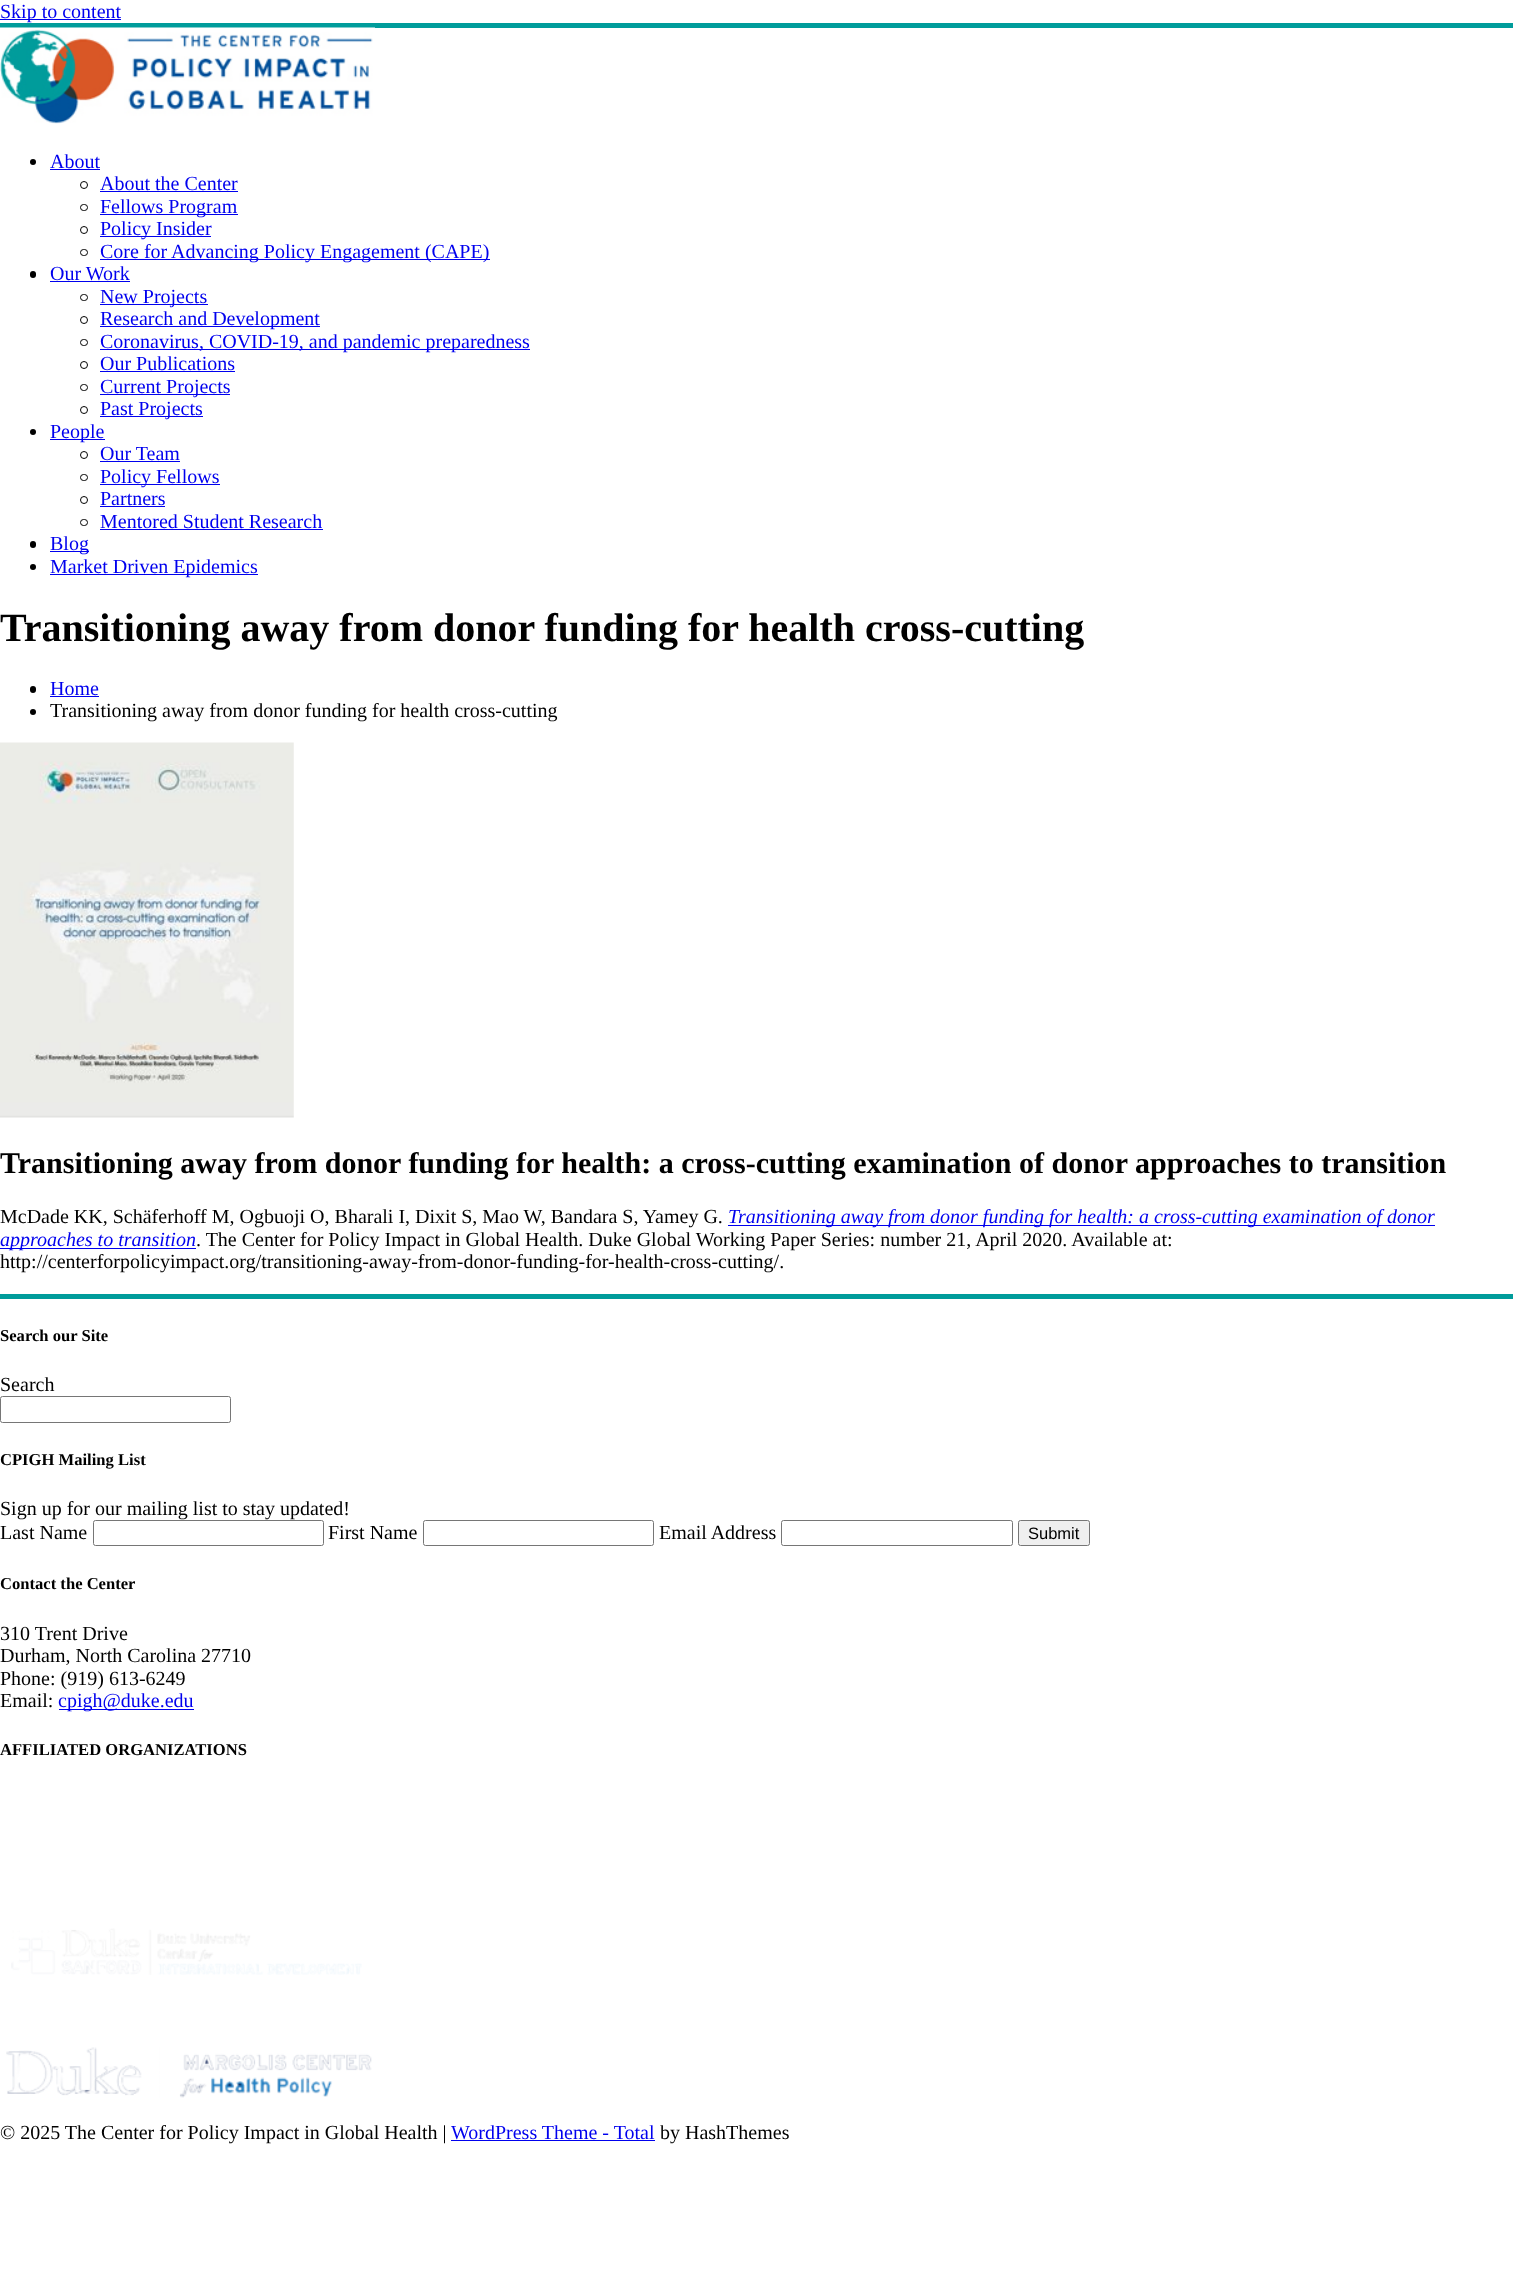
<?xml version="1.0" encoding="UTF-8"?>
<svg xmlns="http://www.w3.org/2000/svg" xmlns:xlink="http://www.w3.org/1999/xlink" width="1513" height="2293">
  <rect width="100%" height="100%" fill="#ffffff" />
  <rect y="19" width="121" height="1" fill="#0000ee" />
  <rect y="23" width="1513" height="5" fill="#009c9b" />
  <image x="0" y="27" width="375" height="97" xlink:href="image1.png" />
  <circle cx="33" cy="162" r="3" fill="#000000" />
  <rect x="50" y="169" width="50" height="1" fill="#0000ee" />
  <circle cx="84" cy="185" r="3.5" fill="none" stroke="#000000" />
  <rect x="100" y="191" width="138" height="1" fill="#0000ee" />
  <rect x="80.5" y="204.5" width="7" height="6" rx="3" fill="none" stroke="#000000" />
  <rect x="100" y="214" width="138" height="1" fill="#0000ee" />
  <circle cx="84" cy="230" r="3.5" fill="none" stroke="#000000" />
  <rect x="100" y="236" width="111" height="1" fill="#0000ee" />
  <rect x="80.5" y="249.5" width="7" height="6" rx="3" fill="none" stroke="#000000" />
  <rect x="100" y="259" width="390" height="1" fill="#0000ee" />
  <rect x="30" y="271" width="6" height="7" rx="3" fill="#000000" />
  <rect x="50" y="281" width="80" height="1" fill="#0000ee" />
  <rect x="80.5" y="294.5" width="7" height="6" rx="3" fill="none" stroke="#000000" />
  <rect x="100" y="304" width="108" height="1" fill="#0000ee" />
  <circle cx="84" cy="320" r="3.5" fill="none" stroke="#000000" />
  <rect x="100" y="326" width="220" height="1" fill="#0000ee" />
  <rect x="80.5" y="339.5" width="7" height="6" rx="3" fill="none" stroke="#000000" />
  <rect x="100" y="349" width="430" height="1" fill="#0000ee" />
  <circle cx="84" cy="365" r="3.5" fill="none" stroke="#000000" />
  <rect x="100" y="371" width="135" height="1" fill="#0000ee" />
  <rect x="80.5" y="384.5" width="7" height="6" rx="3" fill="none" stroke="#000000" />
  <rect x="100" y="394" width="130" height="1" fill="#0000ee" />
  <circle cx="84" cy="410" r="3.5" fill="none" stroke="#000000" />
  <rect x="100" y="416" width="103" height="1" fill="#0000ee" />
  <circle cx="33" cy="432" r="3" fill="#000000" />
  <rect x="50" y="439" width="55" height="1" fill="#0000ee" />
  <circle cx="84" cy="455" r="3.5" fill="none" stroke="#000000" />
  <rect x="100" y="461" width="80" height="1" fill="#0000ee" />
  <rect x="80.5" y="474.5" width="7" height="6" rx="3" fill="none" stroke="#000000" />
  <rect x="100" y="484" width="120" height="1" fill="#0000ee" />
  <circle cx="84" cy="500" r="3.5" fill="none" stroke="#000000" />
  <rect x="100" y="506" width="65" height="1" fill="#0000ee" />
  <rect x="80.5" y="519.5" width="7" height="6" rx="3" fill="none" stroke="#000000" />
  <rect x="100" y="529" width="223" height="1" fill="#0000ee" />
  <rect x="30" y="541" width="6" height="7" rx="3" fill="#000000" />
  <rect x="50" y="551" width="39" height="1" fill="#0000ee" />
  <circle cx="33" cy="567" r="3" fill="#000000" />
  <rect x="50" y="574" width="208" height="1" fill="#0000ee" />
  <rect x="30" y="686" width="6" height="7" rx="3" fill="#000000" />
  <rect x="50" y="696" width="49" height="1" fill="#0000ee" />
  <circle cx="33" cy="712" r="3" fill="#000000" />
  <image x="0" y="742" width="294" height="376" xlink:href="image2.png" />
  <rect x="728" y="1225" width="707" height="1" fill="#0000ee" />
  <rect y="1248" width="196" height="1" fill="#0000ee" />
  <rect y="1294" width="1513" height="5" fill="#009c9b" />
  <rect x="0.5" y="1396.5" width="230" height="26" rx="2" fill="none" stroke="#767676" />
  <rect x="93.5" y="1520.5" width="230" height="25" rx="2" fill="none" stroke="#767676" />
  <rect x="423.5" y="1520.5" width="230" height="25" rx="2" fill="none" stroke="#767676" />
  <rect x="781.5" y="1520.5" width="231" height="25" rx="2" fill="none" stroke="#767676" />
  <rect x="1018.5" y="1520.5" width="71" height="25" rx="2" fill="#efefef" stroke="#767676" />
  <rect x="59" y="1709" width="135" height="1" fill="#0000ee" />
  <image x="11" y="1928" width="351" height="47" xlink:href="image3.png" />
  <image x="6" y="2047" width="366" height="51" xlink:href="image4.png" />
  <rect x="451" y="2140" width="204" height="1" fill="#0000ee" />
  <text x="0" y="18" style="font-family: Liberation Serif; font-size: 20px; fill: #0000ee">Skip to content</text>
  <text x="50" y="168" style="font-family: Liberation Serif; font-size: 20px; fill: #0000ee">About</text>
  <text x="100" y="190" style="font-family: Liberation Serif; font-size: 20px; fill: #0000ee">About the Center</text>
  <text x="100" y="213" style="font-family: Liberation Serif; font-size: 20px; fill: #0000ee">Fellows Program</text>
  <text x="100" y="235" style="font-family: Liberation Serif; font-size: 20px; fill: #0000ee">Policy Insider</text>
  <text x="100" y="258" style="font-family: Liberation Serif; font-size: 20px; fill: #0000ee">Core for Advancing Policy Engagement (CAPE)</text>
  <text x="50" y="280" style="font-family: Liberation Serif; font-size: 20px; fill: #0000ee">Our Work</text>
  <text x="100" y="303" style="font-family: Liberation Serif; font-size: 20px; fill: #0000ee">New Projects</text>
  <text x="100" y="325" style="font-family: Liberation Serif; font-size: 20px; fill: #0000ee">Research and Development</text>
  <text x="100" y="348" style="font-family: Liberation Serif; font-size: 20px; fill: #0000ee">Coronavirus, COVID-19, and pandemic preparedness</text>
  <text x="100" y="370" style="font-family: Liberation Serif; font-size: 20px; fill: #0000ee">Our Publications</text>
  <text x="100" y="393" style="font-family: Liberation Serif; font-size: 20px; fill: #0000ee">Current Projects</text>
  <text x="100" y="415" style="font-family: Liberation Serif; font-size: 20px; fill: #0000ee">Past Projects</text>
  <text x="50" y="438" style="font-family: Liberation Serif; font-size: 20px; fill: #0000ee">People</text>
  <text x="100" y="460" style="font-family: Liberation Serif; font-size: 20px; fill: #0000ee">Our Team</text>
  <text x="100" y="483" style="font-family: Liberation Serif; font-size: 20px; fill: #0000ee">Policy Fellows</text>
  <text x="100" y="505" style="font-family: Liberation Serif; font-size: 20px; fill: #0000ee">Partners</text>
  <text x="100" y="528" style="font-family: Liberation Serif; font-size: 20px; fill: #0000ee">Mentored Student Research</text>
  <text x="50" y="550" style="font-family: Liberation Serif; font-size: 20px; fill: #0000ee">Blog</text>
  <text x="50" y="573" style="font-family: Liberation Serif; font-size: 20px; fill: #0000ee">Market Driven Epidemics</text>
  <text x="0" y="641" style="font-family: Liberation Serif; font-size: 40px; font-weight: bold; fill: #000000">Transitioning away from donor funding for health cross-cutting</text>
  <text x="50" y="695" style="font-family: Liberation Serif; font-size: 20px; fill: #0000ee">Home</text>
  <text x="50" y="717" style="font-family: Liberation Serif; font-size: 20px; fill: #000000">Transitioning away from donor funding for health cross-cutting</text>
  <text x="0" y="1173" style="font-family: Liberation Serif; font-size: 30px; font-weight: bold; fill: #000000">Transitioning away from donor funding for health: a cross-cutting examination of donor approaches to transition</text>
  <text x="0" y="1223" style="font-family: Liberation Serif; font-size: 20px; fill: #000000">McDade KK, Schäferhoff M, Ogbuoji O, Bharali I, Dixit S, Mao W, Bandara S, Yamey G.</text>
  <text x="728" y="1223" style="font-family: Liberation Serif; font-size: 20px; font-style: italic; fill: #0000ee">Transitioning away from donor funding for health: a cross-cutting examination of donor</text>
  <text x="0" y="1246" style="font-family: Liberation Serif; font-size: 20px; font-style: italic; fill: #0000ee">approaches to transition</text>
  <text x="196" y="1246" style="font-family: Liberation Serif; font-size: 20px; fill: #000000">. The Center for Policy Impact in Global Health. Duke Global Working Paper Series: number 21, April 2020. Available at:</text>
  <text x="0" y="1268" style="font-family: Liberation Serif; font-size: 20px; fill: #000000">http://centerforpolicyimpact.org/transitioning-away-from-donor-funding-for-health-cross-cutting/.</text>
  <text x="0" y="1341" style="font-family: Liberation Serif; font-size: 16.6px; font-weight: bold; fill: #000000">Search our Site</text>
  <text x="0" y="1391" style="font-family: Liberation Serif; font-size: 20px; fill: #000000">Search</text>
  <text x="0" y="1465" style="font-family: Liberation Serif; font-size: 16.6px; font-weight: bold; fill: #000000">CPIGH Mailing List</text>
  <text x="0" y="1515" style="font-family: Liberation Serif; font-size: 20px; fill: #000000">Sign up for our mailing list to stay updated!</text>
  <text x="0" y="1539" style="font-family: Liberation Serif; font-size: 20px; fill: #000000">Last Name</text>
  <text x="328" y="1539" style="font-family: Liberation Serif; font-size: 20px; fill: #000000">First Name</text>
  <text x="659" y="1539" style="font-family: Liberation Serif; font-size: 20px; fill: #000000">Email Address</text>
  <text x="1028" y="1539" style="font-family: Liberation Sans; font-size: 16.5px; fill: #000000">Submit</text>
  <text x="0" y="1589" style="font-family: Liberation Serif; font-size: 16.6px; font-weight: bold; fill: #000000">Contact the Center</text>
  <text x="0" y="1640" style="font-family: Liberation Serif; font-size: 20px; fill: #000000">310 Trent Drive</text>
  <text x="0" y="1662" style="font-family: Liberation Serif; font-size: 20px; fill: #000000">Durham, North Carolina 27710</text>
  <text x="0" y="1685" style="font-family: Liberation Serif; font-size: 20px; fill: #000000">Phone: (919) 613-6249</text>
  <text x="0" y="1707" style="font-family: Liberation Serif; font-size: 20px; fill: #000000">Email:</text>
  <text x="58" y="1707" style="font-family: Liberation Serif; font-size: 20px; fill: #0000ee">cpigh@duke.edu</text>
  <text x="0" y="1755" style="font-family: Liberation Serif; font-size: 16.6px; font-weight: bold; fill: #000000">AFFILIATED ORGANIZATIONS</text>
  <text x="0" y="2139" style="font-family: Liberation Serif; font-size: 20px; fill: #000000">© 2025 The Center for Policy Impact in Global Health |</text>
  <text x="451" y="2139" style="font-family: Liberation Serif; font-size: 20px; fill: #0000ee">WordPress Theme - Total</text>
  <text x="660" y="2139" style="font-family: Liberation Serif; font-size: 20px; fill: #000000">by HashThemes</text>
</svg>
